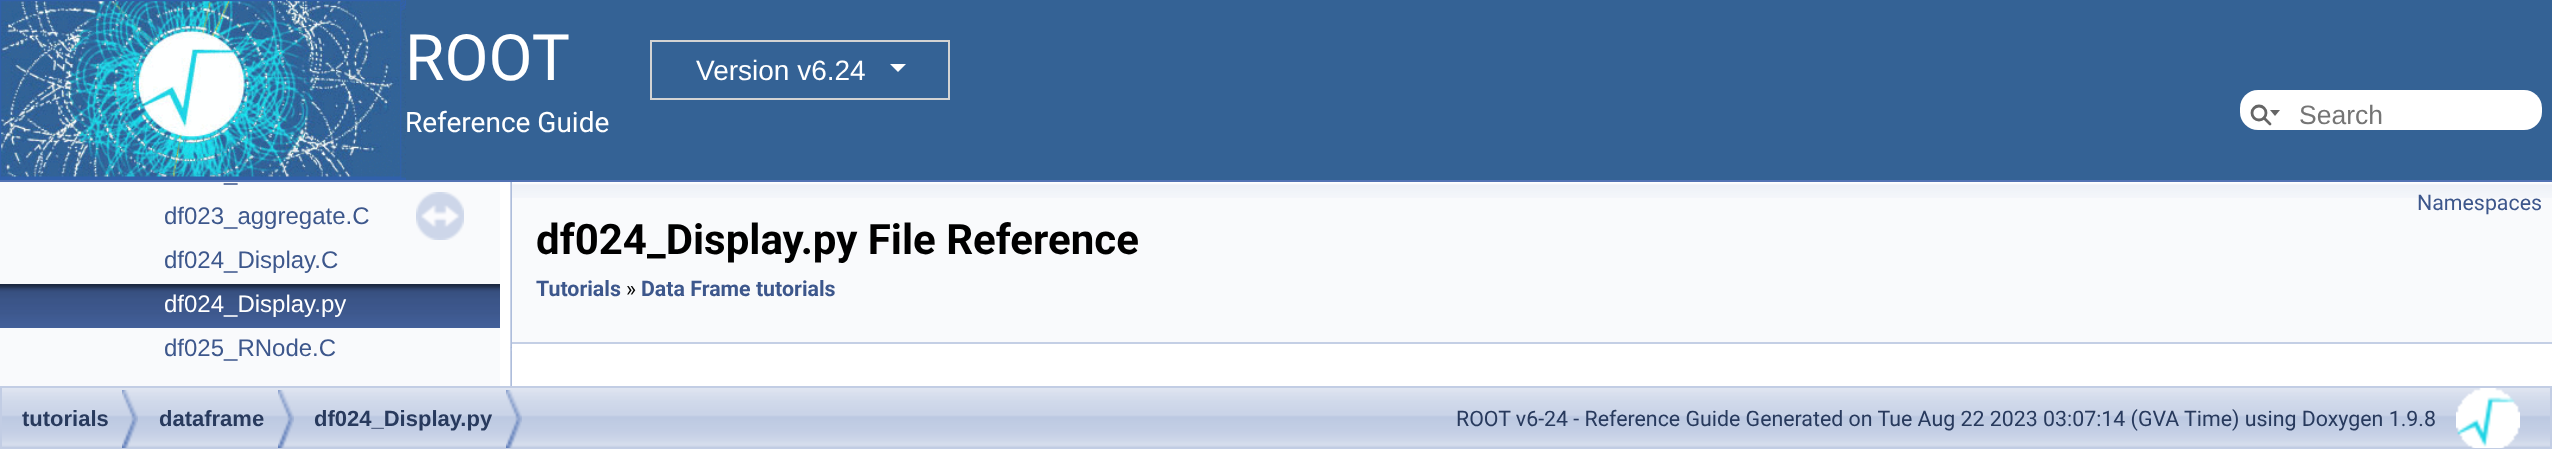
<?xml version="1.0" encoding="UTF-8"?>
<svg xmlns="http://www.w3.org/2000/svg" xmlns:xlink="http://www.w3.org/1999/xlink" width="2552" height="449">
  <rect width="100%" height="100%" fill="#ffffff" />
  <rect y="180" width="2552" height="2" fill="#5373b4" />
  <rect x="406" width="2146" height="180" fill="#346295" />
  <image x="0" y="0" width="406" height="180" xlink:href="image1.png" />
  <rect x="651" y="41" width="298" height="58" fill="none" stroke="#d3d3d3" stroke-width="2" />
  <path d="M 890 64 h 16 l -8 8 z" fill="#ffffff" />
  <rect x="2240" y="90" width="302" height="40" rx="18" fill="#ffffff" />
  <circle cx="2259" cy="113" r="7" fill="none" stroke="#656565" stroke-width="2.8" />
  <path d="M 2270 110 l 5 6 l 5 -6 z" fill="#656565" />
  <path d="M 2264 118 l 6 6" fill="none" stroke="#656565" stroke-width="2.8" stroke-linecap="round" />
  <rect y="182" width="500" height="204" fill="#f9fafc" />
  <image x="0" y="284" width="500" height="44" xlink:href="image2.png" />
  <image x="416" y="192" width="48" height="48" xlink:href="image3.png" />
  <image x="510" y="182" width="2" height="204" xlink:href="image4.png" />
  <rect x="512" y="198" width="2040" height="144" fill="#f9fafc" />
  <image x="512" y="182" width="2040" height="16" xlink:href="image5.png" />
  <rect x="512" y="342" width="2040" height="2" fill="#c4cfe5" />
  <image x="2" y="388" width="2548" height="60" xlink:href="image6.png" />
  <rect x="1" y="387" width="2550" height="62" fill="none" stroke="#c2cde4" stroke-width="2" />
  <image x="122" y="390" width="16" height="58" xlink:href="image7.png" />
  <image x="278" y="390" width="16" height="58" xlink:href="image7.png" />
  <image x="506" y="390" width="16" height="58" xlink:href="image7.png" />
  <image x="2456" y="388" width="64" height="60" xlink:href="image8.png" />
  <text x="405" y="80" style="font-family: Roboto; font-size: 64px; fill: #ffffff">ROOT</text>
  <text x="696" y="80" style="font-family: Liberation Sans; font-size: 28px; fill: #ffffff">Version v6.24</text>
  <text x="405" y="132" style="font-family: Roboto; font-size: 28px; fill: #ffffff">Reference Guide</text>
  <text x="2299" y="124" style="font-family: Liberation Sans; font-size: 26.5px; fill: #757575">Search</text>
  <text x="224" y="180" style="font-family: Liberation Sans; font-size: 24px; fill: #3d578c">_</text>
  <text x="164" y="224" style="font-family: Liberation Sans; font-size: 24px; fill: #3d578c">df023_aggregate.C</text>
  <text x="164" y="268" style="font-family: Liberation Sans; font-size: 24px; fill: #3d578c">df024_Display.C</text>
  <text x="164" y="312" style="font-family: Liberation Sans; font-size: 24px; fill: #ffffff">df024_Display.py</text>
  <text x="164" y="356" style="font-family: Liberation Sans; font-size: 24px; fill: #3d578c">df025_RNode.C</text>
  <text x="2417" y="210" style="font-family: Roboto; font-size: 21.35px; fill: #3d578c">Namespaces</text>
  <text x="536" y="254" style="font-family: Roboto; font-size: 42px; font-weight: bold; fill: #000000">df024_Display.py File Reference</text>
  <text x="536" y="296" style="font-family: Roboto; font-size: 21.35px; font-weight: bold; fill: #3d578c">Tutorials</text>
  <text x="626" y="296" style="font-family: Roboto; font-size: 21.35px; fill: #000000">»</text>
  <text x="641" y="296" style="font-family: Roboto; font-size: 21.35px; font-weight: bold; fill: #3d578c">Data Frame tutorials</text>
  <text x="22" y="426" style="font-family: Liberation Sans; font-size: 22px; font-weight: bold; fill: #283a5d">tutorials</text>
  <text x="159" y="426" style="font-family: Liberation Sans; font-size: 22px; font-weight: bold; fill: #283a5d">dataframe</text>
  <text x="314" y="426" style="font-family: Liberation Sans; font-size: 22px; font-weight: bold; fill: #283a5d">df024_Display.py</text>
  <text x="1456" y="426" style="font-family: Roboto; font-size: 21.35px; fill: #283a5d">ROOT v6-24 - Reference Guide Generated on Tue Aug 22 2023 03:07:14 (GVA Time) using Doxygen 1.9.8</text>
</svg>
